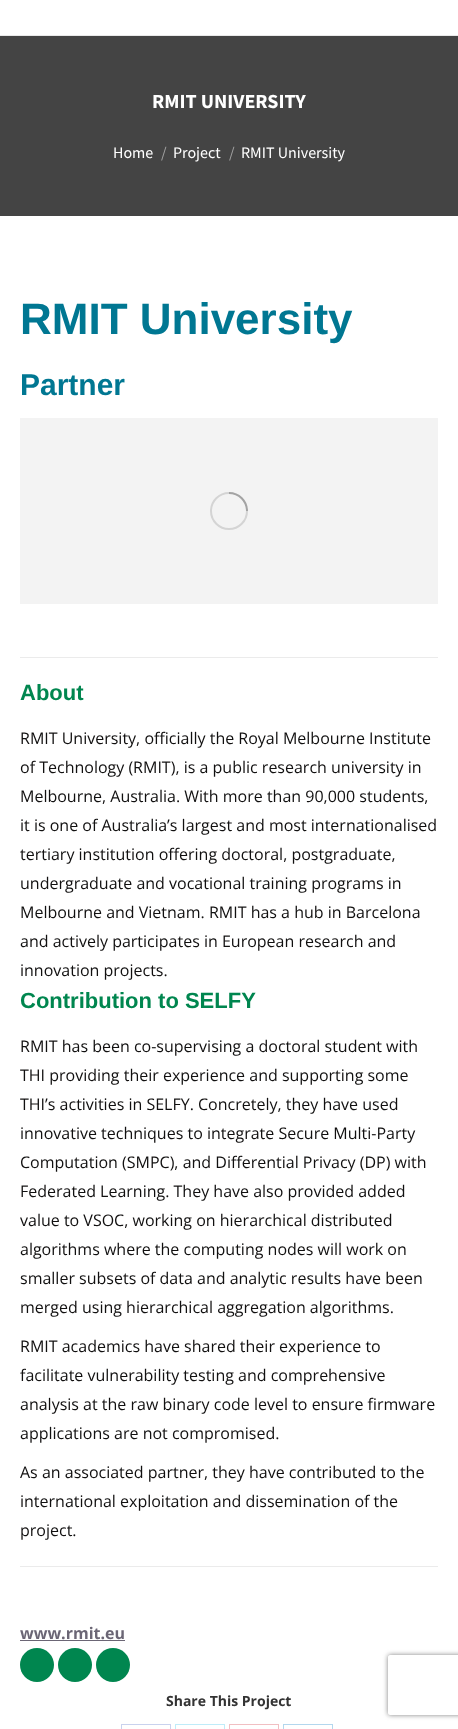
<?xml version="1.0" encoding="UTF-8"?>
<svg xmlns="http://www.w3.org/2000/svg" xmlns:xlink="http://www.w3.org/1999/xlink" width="458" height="1729">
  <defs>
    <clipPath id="clip1"><path d="M 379 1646 h 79 v 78 h -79 z m 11 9 h 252 c 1 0 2 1 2 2 v 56 c 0 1 -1 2 -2 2 h -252 c -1 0 -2 -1 -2 -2 v -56 c 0 -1 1 -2 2 -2 z" clip-rule="evenodd" /></clipPath>
  </defs>
  <rect width="100%" height="100%" fill="#ffffff" />
  <rect y="35" width="458" height="1" fill="#e9e9e9" />
  <rect y="36" width="458" height="180" fill="#444444" />
  <rect x="20" y="418" width="418" height="186" fill="#f3f3f3" />
  <circle cx="229" cy="511" r="18" fill="none" stroke="#d4d4d4" stroke-width="2" />
  <path d="M 247 511 c 0 -10 -8 -18 -18 -18" fill="none" stroke="#111010" stroke-opacity="0.25" stroke-width="2" />
  <rect x="20" y="657" width="418" height="1" fill="#ebebeb" />
  <rect x="20" y="1566" width="418" height="1" fill="#ebebeb" />
  <rect x="20" y="1640" width="105" height="1" fill="#6b6675" />
  <circle cx="37" cy="1665" r="17" fill="#00864f" />
  <circle cx="75" cy="1665" r="17" fill="#00864f" />
  <circle cx="113" cy="1665" r="17" fill="#00864f" />
  <rect x="121.5" y="1724.5" width="49" height="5" fill="none" stroke="#c9d2ee" />
  <rect x="175.5" y="1724.5" width="49" height="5" fill="none" stroke="#bfecf9" />
  <rect x="229.5" y="1724.5" width="49" height="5" fill="none" stroke="#f1bfc2" />
  <rect x="283.5" y="1724.5" width="49" height="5" fill="none" stroke="#b3d7ee" />
  <g clip-path="url(#clip1)">
    <rect x="388" y="1655" width="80" height="60" rx="2" fill="#808080" filter="blur(2.5px)" />
  </g>
  <text x="152" y="108" style="font-family: Source Sans Pro; font-size: 20px; font-weight: bold; fill: #ffffff">RMIT UNIVERSITY</text>
  <text x="113" y="158" style="font-family: Source Sans Pro; font-size: 16px; fill: #ffffff">Home</text>
  <text x="161" y="158" style="font-family: Source Sans Pro; font-size: 16px; fill: #a2a2a2">/</text>
  <text x="173" y="158" style="font-family: Source Sans Pro; font-size: 16px; fill: #ffffff">Project</text>
  <text x="229" y="158" style="font-family: Source Sans Pro; font-size: 16px; fill: #a2a2a2">/</text>
  <text x="241" y="158" style="font-family: Source Sans Pro; font-size: 16px; fill: #ffffff">RMIT University</text>
  <text x="20" y="334" style="font-family: Liberation Sans; font-size: 44px; font-weight: bold; fill: #007792">RMIT University</text>
  <text x="20" y="395" style="font-family: Liberation Sans; font-size: 30px; font-weight: bold; fill: #007792">Partner</text>
  <text x="20" y="700" style="font-family: Liberation Sans; font-size: 22px; font-weight: bold; fill: #00864f">About</text>
  <text x="20" y="744" style="font-family: Open Sans; font-size: 16px; fill: #111010">RMIT University, officially the Royal Melbourne Institute</text>
  <text x="20" y="773" style="font-family: Open Sans; font-size: 16px; fill: #111010">of Technology (RMIT), is a public research university in</text>
  <text x="20" y="802" style="font-family: Open Sans; font-size: 16px; fill: #111010">Melbourne, Australia. With more than 90,000 students,</text>
  <text x="20" y="831" style="font-family: Open Sans; font-size: 16px; fill: #111010">it is one of Australia’s largest and most internationalised</text>
  <text x="20" y="860" style="font-family: Open Sans; font-size: 16px; fill: #111010">tertiary institution offering doctoral, postgraduate,</text>
  <text x="20" y="889" style="font-family: Open Sans; font-size: 16px; fill: #111010">undergraduate and vocational training programs in</text>
  <text x="20" y="918" style="font-family: Open Sans; font-size: 16px; fill: #111010">Melbourne and Vietnam. RMIT has a hub in Barcelona</text>
  <text x="20" y="947" style="font-family: Open Sans; font-size: 16px; fill: #111010">and actively participates in European research and</text>
  <text x="20" y="976" style="font-family: Open Sans; font-size: 16px; fill: #111010">innovation projects.</text>
  <text x="20" y="1008" style="font-family: Liberation Sans; font-size: 22px; font-weight: bold; fill: #00864f">Contribution to SELFY</text>
  <text x="20" y="1052" style="font-family: Open Sans; font-size: 16px; fill: #111010">RMIT has been co-supervising a doctoral student with</text>
  <text x="20" y="1081" style="font-family: Open Sans; font-size: 16px; fill: #111010">THI providing their experience and supporting some</text>
  <text x="20" y="1110" style="font-family: Open Sans; font-size: 16px; fill: #111010">THI’s activities in SELFY. Concretely, they have used</text>
  <text x="20" y="1139" style="font-family: Open Sans; font-size: 16px; fill: #111010">innovative techniques to integrate Secure Multi-Party</text>
  <text x="20" y="1168" style="font-family: Open Sans; font-size: 16px; fill: #111010">Computation (SMPC), and Differential Privacy (DP) with</text>
  <text x="20" y="1197" style="font-family: Open Sans; font-size: 16px; fill: #111010">Federated Learning. They have also provided added</text>
  <text x="20" y="1226" style="font-family: Open Sans; font-size: 16px; fill: #111010">value to VSOC, working on hierarchical distributed</text>
  <text x="20" y="1255" style="font-family: Open Sans; font-size: 16px; fill: #111010">algorithms where the computing nodes will work on</text>
  <text x="20" y="1284" style="font-family: Open Sans; font-size: 16px; fill: #111010">smaller subsets of data and analytic results have been</text>
  <text x="20" y="1313" style="font-family: Open Sans; font-size: 16px; fill: #111010">merged using hierarchical aggregation algorithms.</text>
  <text x="20" y="1352" style="font-family: Open Sans; font-size: 16px; fill: #111010">RMIT academics have shared their experience to</text>
  <text x="20" y="1381" style="font-family: Open Sans; font-size: 16px; fill: #111010">facilitate vulnerability testing and comprehensive</text>
  <text x="20" y="1410" style="font-family: Open Sans; font-size: 16px; fill: #111010">analysis at the raw binary code level to ensure firmware</text>
  <text x="20" y="1439" style="font-family: Open Sans; font-size: 16px; fill: #111010">applications are not compromised.</text>
  <text x="20" y="1478" style="font-family: Open Sans; font-size: 16px; fill: #111010">As an associated partner, they have contributed to the</text>
  <text x="20" y="1507" style="font-family: Open Sans; font-size: 16px; fill: #111010">international exploitation and dissemination of the</text>
  <text x="20" y="1536" style="font-family: Open Sans; font-size: 16px; fill: #111010">project.</text>
  <text x="20" y="1639" style="font-family: Open Sans; font-size: 16px; font-weight: bold; fill: #6b6675">www.rmit.eu</text>
  <text x="166" y="1706" style="font-family: Open Sans; font-size: 14px; font-weight: bold; fill: #333333">Share This Project</text>
</svg>
